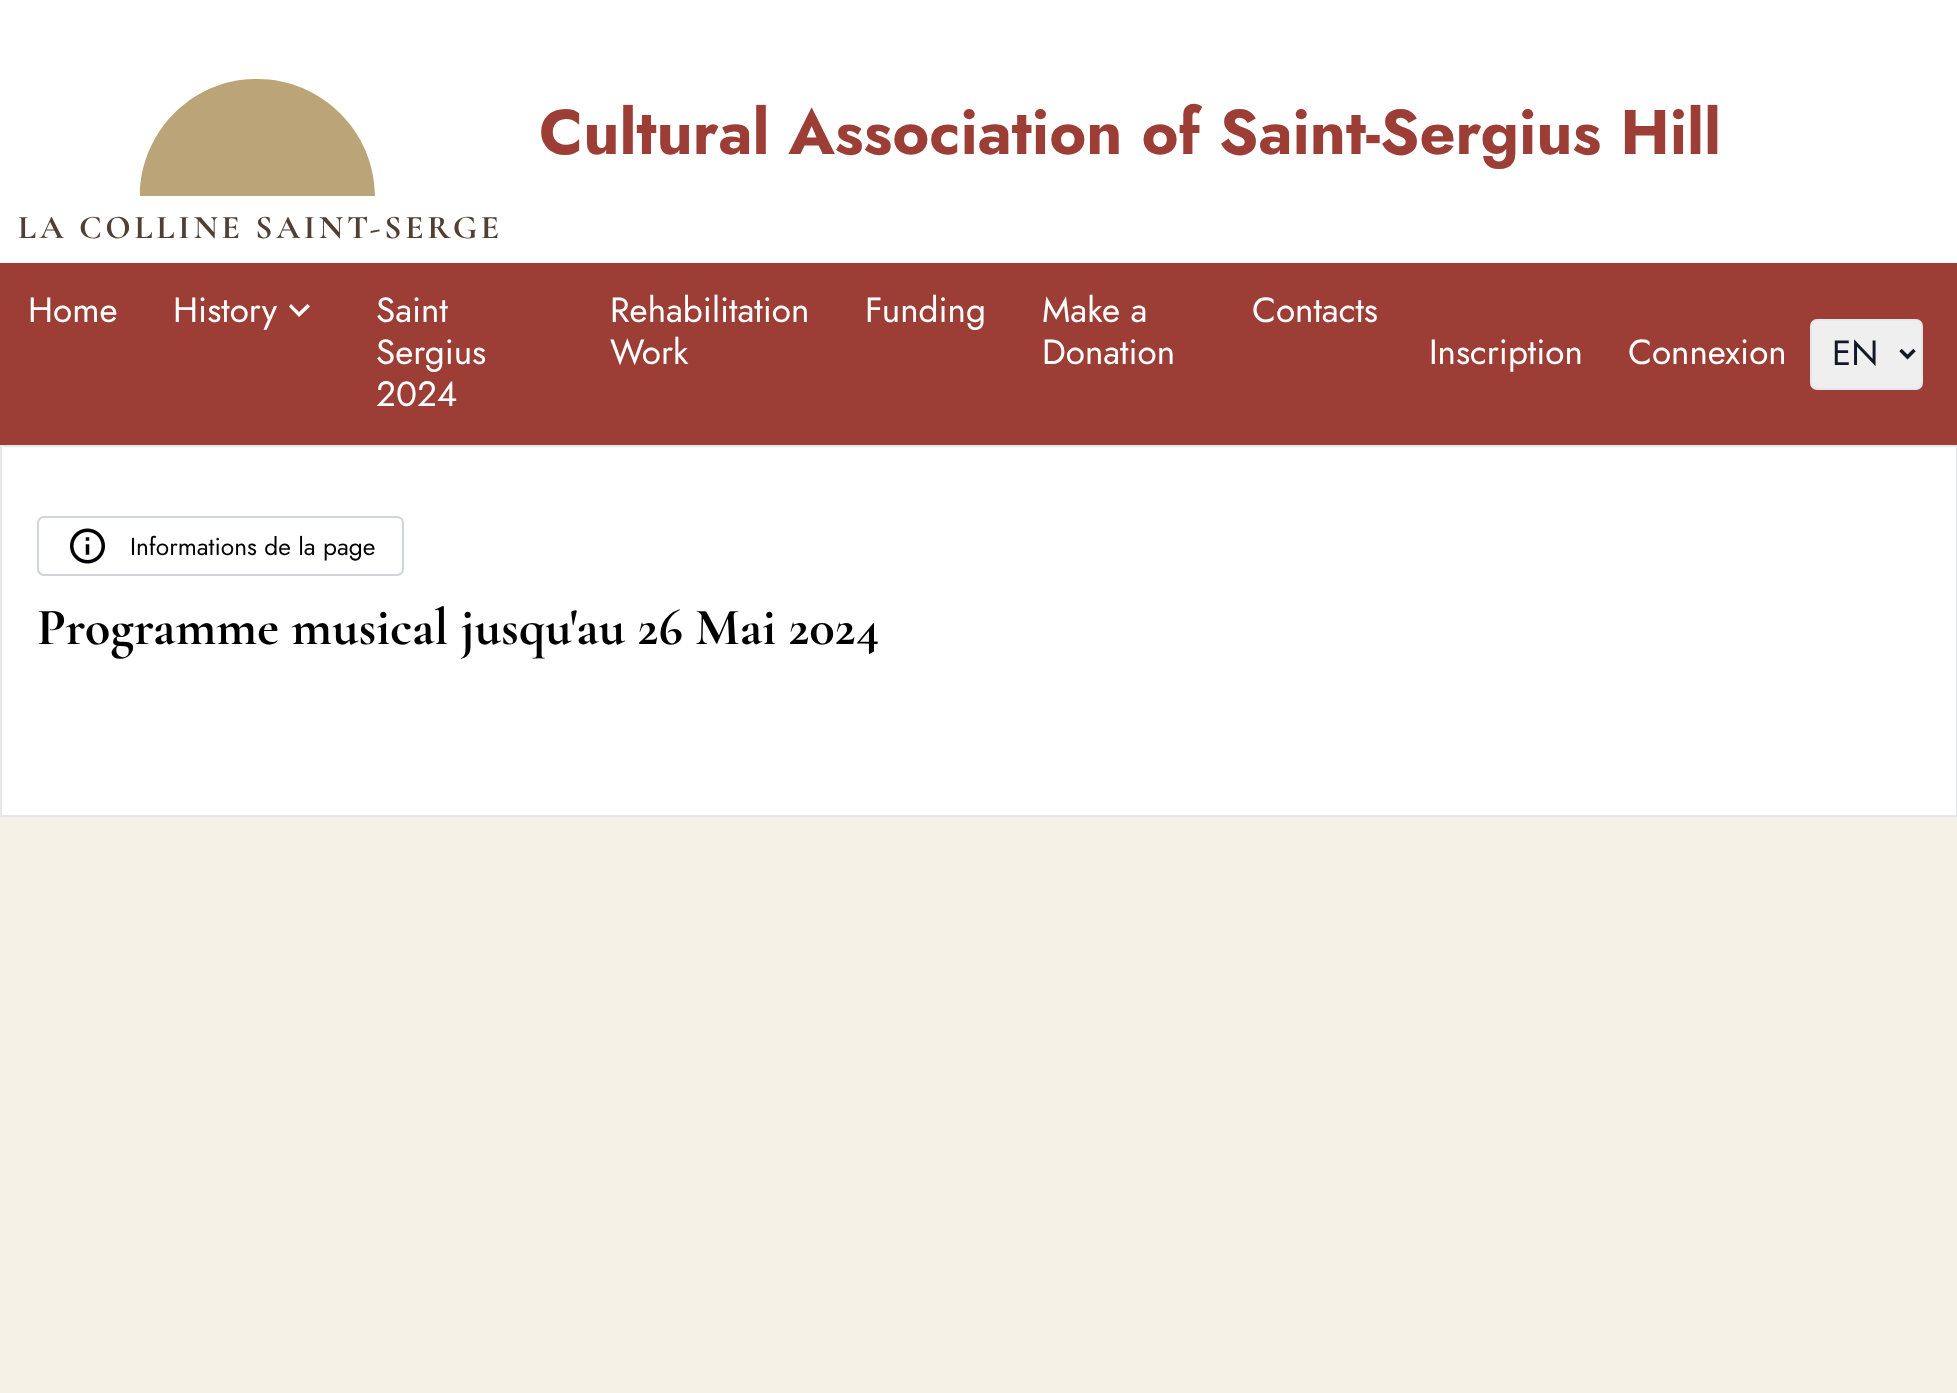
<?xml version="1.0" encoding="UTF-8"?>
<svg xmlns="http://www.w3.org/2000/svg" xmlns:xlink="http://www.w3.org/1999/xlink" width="1957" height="1393">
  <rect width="100%" height="100%" fill="#f4f0e6" />
  <rect width="1957" height="263" fill="#ffffff" />
  <path d="M 375 196 h -235 c 0 -63 51 -116 114 -117 c 66 -2 121 52 121 117 z" fill="#bba477" />
  <rect y="263" width="1957" height="182" fill="#9c3d36" />
  <path d="M 291 304 l 8 8 l 8.5 -8 l 2.5 2.5 l -11 10.5 l -10 -10.5 z" fill="#ffffff" />
  <rect x="1811" y="320" width="111" height="69" rx="6" fill="#efefef" stroke="#e5e7eb" stroke-width="2" />
  <path d="M 1900.5 350 l 7 7 l 7 -7" fill="none" stroke="#111827" stroke-width="3.5" />
  <rect x="1" y="446" width="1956" height="370" fill="#ffffff" stroke="#e5e7eb" stroke-width="2" />
  <rect x="38" y="517" width="365" height="58" rx="6" fill="none" stroke="#d1d5db" stroke-width="2" />
  <image x="70" y="528" width="35" height="36" xlink:href="image1.png" />
  <text x="539" y="154" style="font-family: Jost; font-size: 63px; font-weight: bold; fill: #9c3d36">Cultural Association of Saint-Sergius Hill</text>
  <text x="18" y="238" style="font-family: Cormorant Garamond; font-size: 33.25px; font-weight: bold; letter-spacing: 3.75px; fill: #513f33">LA COLLINE SAINT-SERGE</text>
  <text x="28" y="322" style="font-family: Jost; font-size: 35px; fill: #ffffff">Home</text>
  <text x="173" y="322" style="font-family: Jost; font-size: 35px; fill: #ffffff">History</text>
  <text x="376" y="322" style="font-family: Jost; font-size: 35px; fill: #ffffff">Saint</text>
  <text x="376" y="364" style="font-family: Jost; font-size: 35px; fill: #ffffff">Sergius</text>
  <text x="376" y="406" style="font-family: Jost; font-size: 35px; fill: #ffffff">2024</text>
  <text x="610" y="322" style="font-family: Jost; font-size: 35px; fill: #ffffff">Rehabilitation</text>
  <text x="610" y="364" style="font-family: Jost; font-size: 35px; fill: #ffffff">Work</text>
  <text x="865" y="322" style="font-family: Jost; font-size: 35px; fill: #ffffff">Funding</text>
  <text x="1042" y="322" style="font-family: Jost; font-size: 35px; fill: #ffffff">Make a</text>
  <text x="1042" y="364" style="font-family: Jost; font-size: 35px; fill: #ffffff">Donation</text>
  <text x="1252" y="322" style="font-family: Jost; font-size: 35px; fill: #ffffff">Contacts</text>
  <text x="1429" y="364" style="font-family: Jost; font-size: 35px; fill: #ffffff">Inscription</text>
  <text x="1628" y="364" style="font-family: Jost; font-size: 35px; fill: #ffffff">Connexion</text>
  <text x="1832" y="365" style="font-family: Jost; font-size: 35px; fill: #111827">EN</text>
  <text x="130" y="555" style="font-family: Jost; font-size: 24.5px; fill: #000000">Informations de la page</text>
  <text x="37" y="644" style="font-family: Cormorant Garamond; font-size: 52.5px; font-weight: bold; fill: #000000">Programme musical jusqu'au 26 Mai 2024</text>
</svg>
